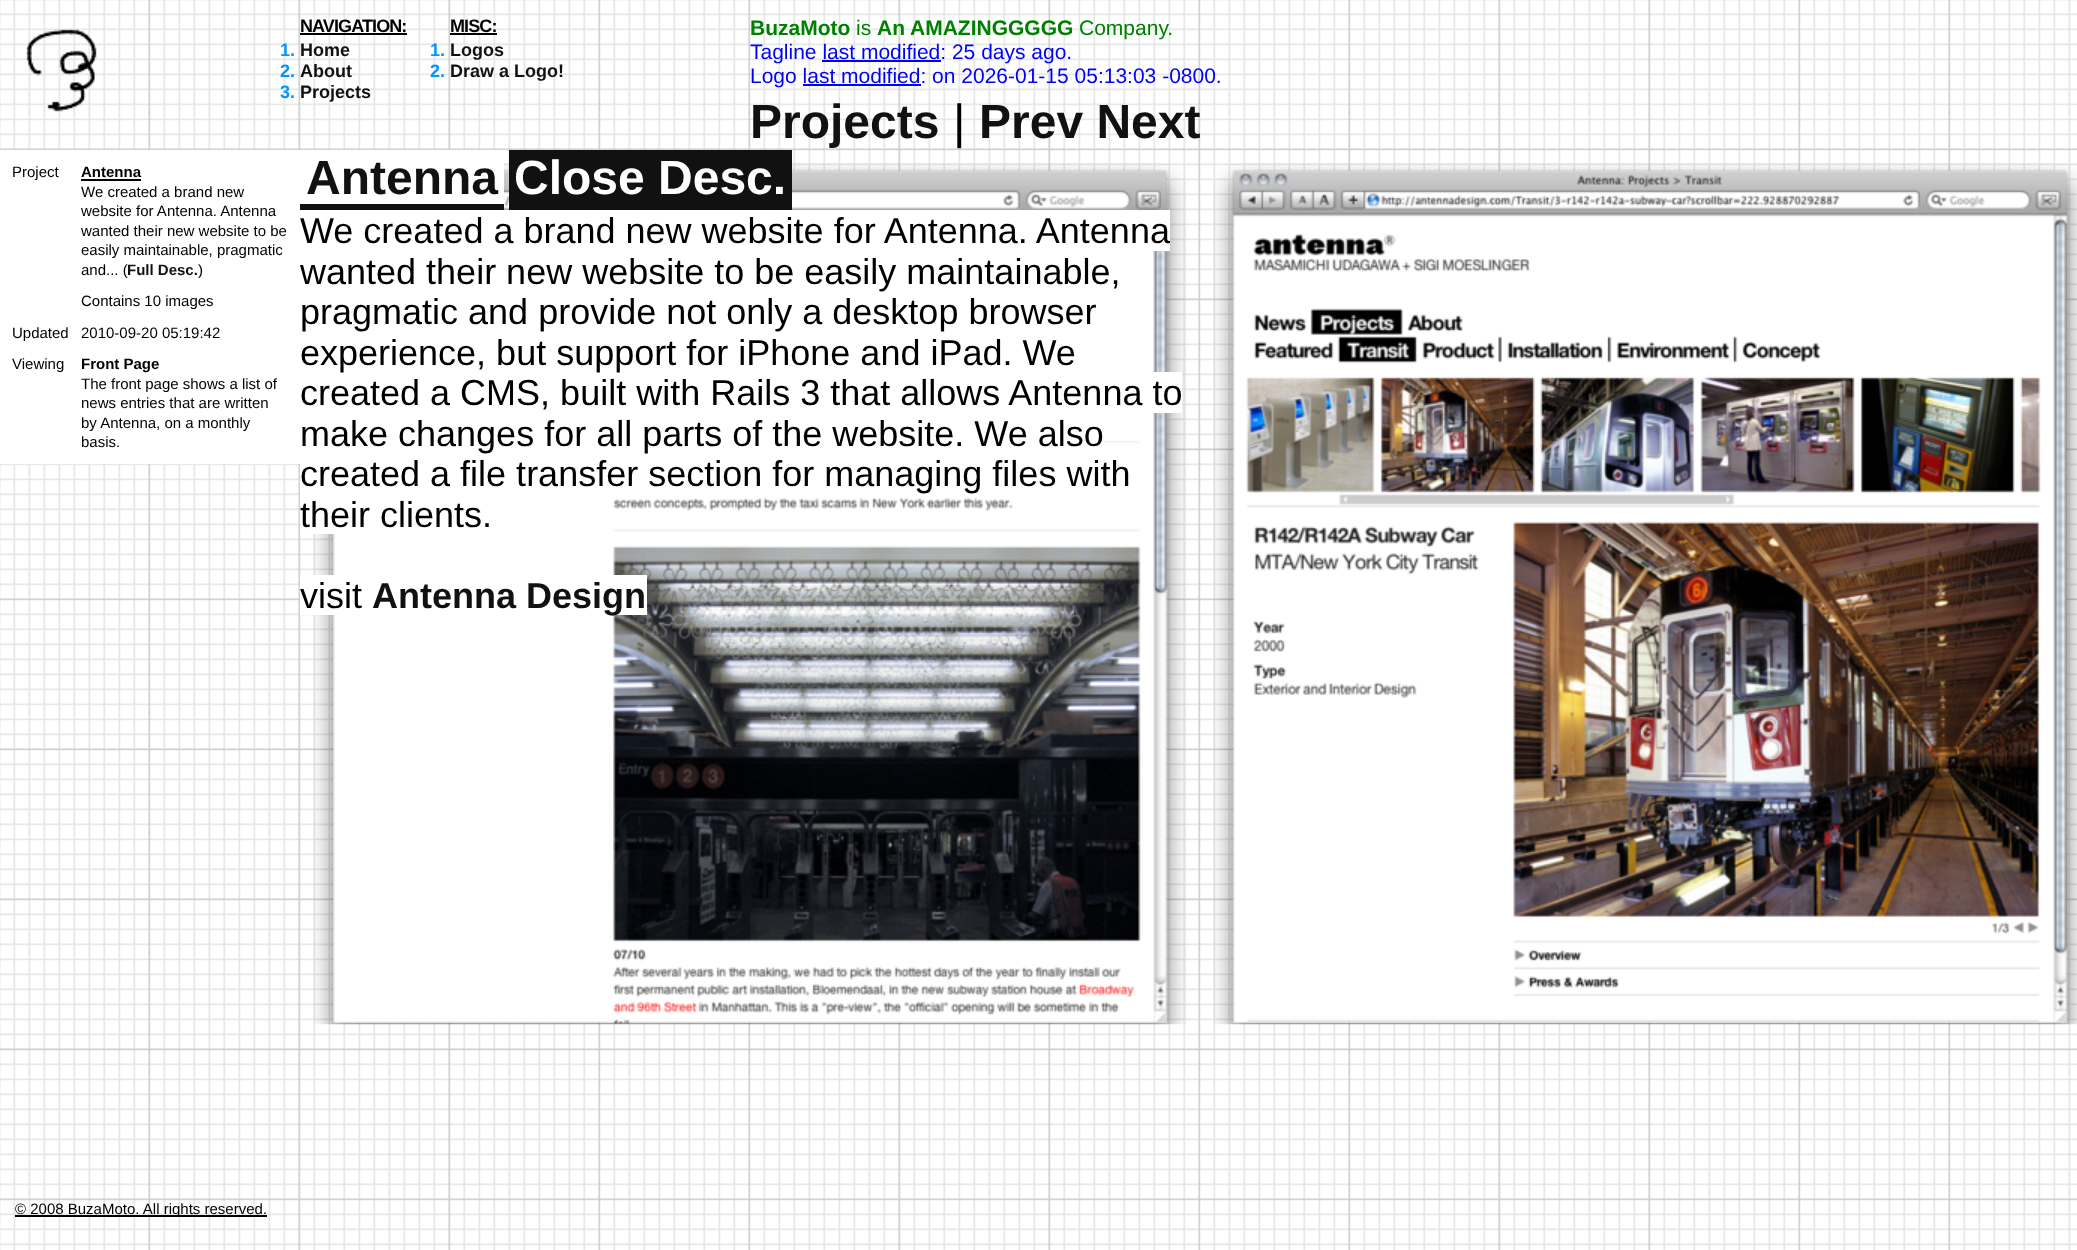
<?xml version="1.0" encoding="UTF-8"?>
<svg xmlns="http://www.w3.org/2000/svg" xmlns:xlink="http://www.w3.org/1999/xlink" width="2077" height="1250">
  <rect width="100%" height="100%" fill="#ffffff" />
  <image x="0" y="0" width="2077" height="1250" xlink:href="image1.png" />
  <image x="26" y="29" width="71" height="83" xlink:href="image2.png" />
  <rect x="300" y="33" width="107" height="2" fill="#000000" />
  <rect x="450" y="33" width="47" height="2" fill="#000000" />
  <rect x="822" y="60" width="119" height="2" fill="#0000ff" />
  <rect x="803" y="84" width="118" height="2" fill="#0000ff" />
  <image x="313" y="163" width="874" height="862" xlink:href="image3.png" />
  <rect x="300" y="150" width="204" height="54" fill="#ffffff" />
  <rect x="300" y="204" width="204" height="6" fill="#111111" />
  <rect x="509" y="150" width="283" height="60" fill="#111111" />
  <rect x="300" y="210" width="870" height="41" fill="#ffffff" />
  <rect x="300" y="251" width="331" height="40" fill="#ffffff" />
  <rect x="300" y="291" width="263" height="41" fill="#ffffff" />
  <rect x="300" y="332" width="203" height="40" fill="#ffffff" />
  <rect x="300" y="372" width="882" height="41" fill="#ffffff" />
  <rect x="300" y="413" width="804" height="40" fill="#ffffff" />
  <rect x="300" y="453" width="826" height="41" fill="#ffffff" />
  <rect x="300" y="494" width="35" height="40" fill="#ffffff" />
  <rect x="300" y="575" width="35" height="40" fill="#ffffff" />
  <rect x="613" y="575" width="34" height="40" fill="#ffffff" />
  <image x="1213" y="163" width="864" height="862" xlink:href="image4.png" />
  <rect x="15" y="1215" width="252" height="2" fill="#000000" />
  <text x="300" y="32" style="font-family: Liberation Sans; font-size: 18px; font-weight: bold; letter-spacing: -0.9px; fill: #000000">NAVIGATION:</text>
  <text x="280" y="56" style="font-family: Liberation Sans; font-size: 18px; font-weight: bold; fill: #0096ff">1.</text>
  <text x="300" y="56" style="font-family: Liberation Sans; font-size: 18px; font-weight: bold; fill: #111111">Home</text>
  <text x="280" y="77" style="font-family: Liberation Sans; font-size: 18px; font-weight: bold; fill: #0096ff">2.</text>
  <text x="300" y="77" style="font-family: Liberation Sans; font-size: 18px; font-weight: bold; fill: #111111">About</text>
  <text x="280" y="98" style="font-family: Liberation Sans; font-size: 18px; font-weight: bold; fill: #0096ff">3.</text>
  <text x="300" y="98" style="font-family: Liberation Sans; font-size: 18px; font-weight: bold; fill: #111111">Projects</text>
  <text x="450" y="32" style="font-family: Liberation Sans; font-size: 18px; font-weight: bold; letter-spacing: -0.9px; fill: #000000">MISC:</text>
  <text x="430" y="56" style="font-family: Liberation Sans; font-size: 18px; font-weight: bold; fill: #0096ff">1.</text>
  <text x="450" y="56" style="font-family: Liberation Sans; font-size: 18px; font-weight: bold; fill: #111111">Logos</text>
  <text x="430" y="77" style="font-family: Liberation Sans; font-size: 18px; font-weight: bold; fill: #0096ff">2.</text>
  <text x="450" y="77" style="font-family: Liberation Sans; font-size: 18px; font-weight: bold; fill: #111111">Draw a Logo!</text>
  <text x="750" y="35" style="font-family: Liberation Sans; font-size: 21px; font-weight: bold; fill: #008000">BuzaMoto</text>
  <text x="856" y="35" style="font-family: Liberation Sans; font-size: 21px; fill: #008000">is</text>
  <text x="877" y="35" style="font-family: Liberation Sans; font-size: 21px; font-weight: bold; fill: #008000">An AMAZINGGGGG</text>
  <text x="1079" y="35" style="font-family: Liberation Sans; font-size: 21px; fill: #008000">Company.</text>
  <text x="750" y="59" style="font-family: Liberation Sans; font-size: 21px; fill: #0000ff">Tagline last modified: 25 days ago.</text>
  <text x="750" y="83" style="font-family: Liberation Sans; font-size: 21px; fill: #0000ff">Logo last modified: on 2026-01-15 05:13:03 -0800.</text>
  <text x="750" y="138" style="font-family: Liberation Sans; font-size: 48px; font-weight: bold; fill: #111111">Projects</text>
  <text x="953" y="138" style="font-family: Liberation Sans; font-size: 48px; fill: #000000">|</text>
  <text x="979" y="138" style="font-family: Liberation Sans; font-size: 48px; font-weight: bold; fill: #111111">Prev Next</text>
  <text x="306" y="194" style="font-family: Liberation Sans; font-size: 48px; font-weight: bold; fill: #111111">Antenna</text>
  <text x="514" y="194" style="font-family: Liberation Sans; font-size: 48px; font-weight: bold; fill: #ffffff">Close Desc.</text>
  <text x="300" y="243" style="font-family: Liberation Sans; font-size: 36px; fill: #000000">We created a brand new website for Antenna. Antenna</text>
  <text x="300" y="284" style="font-family: Liberation Sans; font-size: 36px; fill: #000000">wanted their new website to be easily maintainable,</text>
  <rect y="150" width="300" height="314" fill="#ffffff" />
  <text x="81" y="447" style="font-family: Liberation Sans; font-size: 15px; fill: #000000">basis.</text>
  <text x="81" y="428" style="font-family: Liberation Sans; font-size: 15px; fill: #000000">by Antenna, on a monthly</text>
  <text x="81" y="408" style="font-family: Liberation Sans; font-size: 15px; fill: #000000">news entries that are written</text>
  <text x="81" y="389" style="font-family: Liberation Sans; font-size: 15px; fill: #000000">The front page shows a list of</text>
  <text x="81" y="369" style="font-family: Liberation Sans; font-size: 15px; font-weight: bold; fill: #000000">Front Page</text>
  <text x="12" y="369" style="font-family: Liberation Sans; font-size: 15px; fill: #000000">Viewing</text>
  <text x="81" y="338" style="font-family: Liberation Sans; font-size: 15px; fill: #000000">2010-09-20 05:19:42</text>
  <text x="12" y="338" style="font-family: Liberation Sans; font-size: 15px; fill: #000000">Updated</text>
  <text x="81" y="306" style="font-family: Liberation Sans; font-size: 15px; fill: #000000">Contains 10 images</text>
  <text x="198" y="275" style="font-family: Liberation Sans; font-size: 15px; fill: #000000">)</text>
  <text x="127" y="275" style="font-family: Liberation Sans; font-size: 15px; font-weight: bold; fill: #111111">Full Desc.</text>
  <text x="81" y="275" style="font-family: Liberation Sans; font-size: 15px; fill: #000000">and... (</text>
  <text x="81" y="255" style="font-family: Liberation Sans; font-size: 15px; fill: #000000">easily maintainable, pragmatic</text>
  <text x="81" y="236" style="font-family: Liberation Sans; font-size: 15px; fill: #000000">wanted their new website to be</text>
  <text x="81" y="216" style="font-family: Liberation Sans; font-size: 15px; fill: #000000">website for Antenna. Antenna</text>
  <text x="81" y="197" style="font-family: Liberation Sans; font-size: 15px; fill: #000000">We created a brand new</text>
  <text x="81" y="177" style="font-family: Liberation Sans; font-size: 15px; font-weight: bold; fill: #000000">Antenna</text>
  <rect x="81" y="179" width="60" height="2" fill="#000000" />
  <text x="12" y="177" style="font-family: Liberation Sans; font-size: 15px; fill: #000000">Project</text>
  <text x="300" y="324" style="font-family: Liberation Sans; font-size: 36px; fill: #000000">pragmatic and provide not only a desktop browser</text>
  <text x="300" y="365" style="font-family: Liberation Sans; font-size: 36px; fill: #000000">experience, but support for iPhone and iPad. We</text>
  <text x="300" y="405" style="font-family: Liberation Sans; font-size: 36px; fill: #000000">created a CMS, built with Rails 3 that allows Antenna to</text>
  <text x="300" y="446" style="font-family: Liberation Sans; font-size: 36px; fill: #000000">make changes for all parts of the website. We also</text>
  <text x="300" y="486" style="font-family: Liberation Sans; font-size: 36px; fill: #000000">created a file transfer section for managing files with</text>
  <text x="300" y="527" style="font-family: Liberation Sans; font-size: 36px; fill: #000000">their clients.</text>
  <text x="300" y="608" style="font-family: Liberation Sans; font-size: 36px; fill: #000000">visit</text>
  <text x="372" y="608" style="font-family: Liberation Sans; font-size: 36px; font-weight: bold; fill: #111111">Antenna Design</text>
  <text x="15" y="1214" style="font-family: Liberation Sans; font-size: 15px; fill: #000000">© 2008 BuzaMoto. All rights reserved.</text>
</svg>
